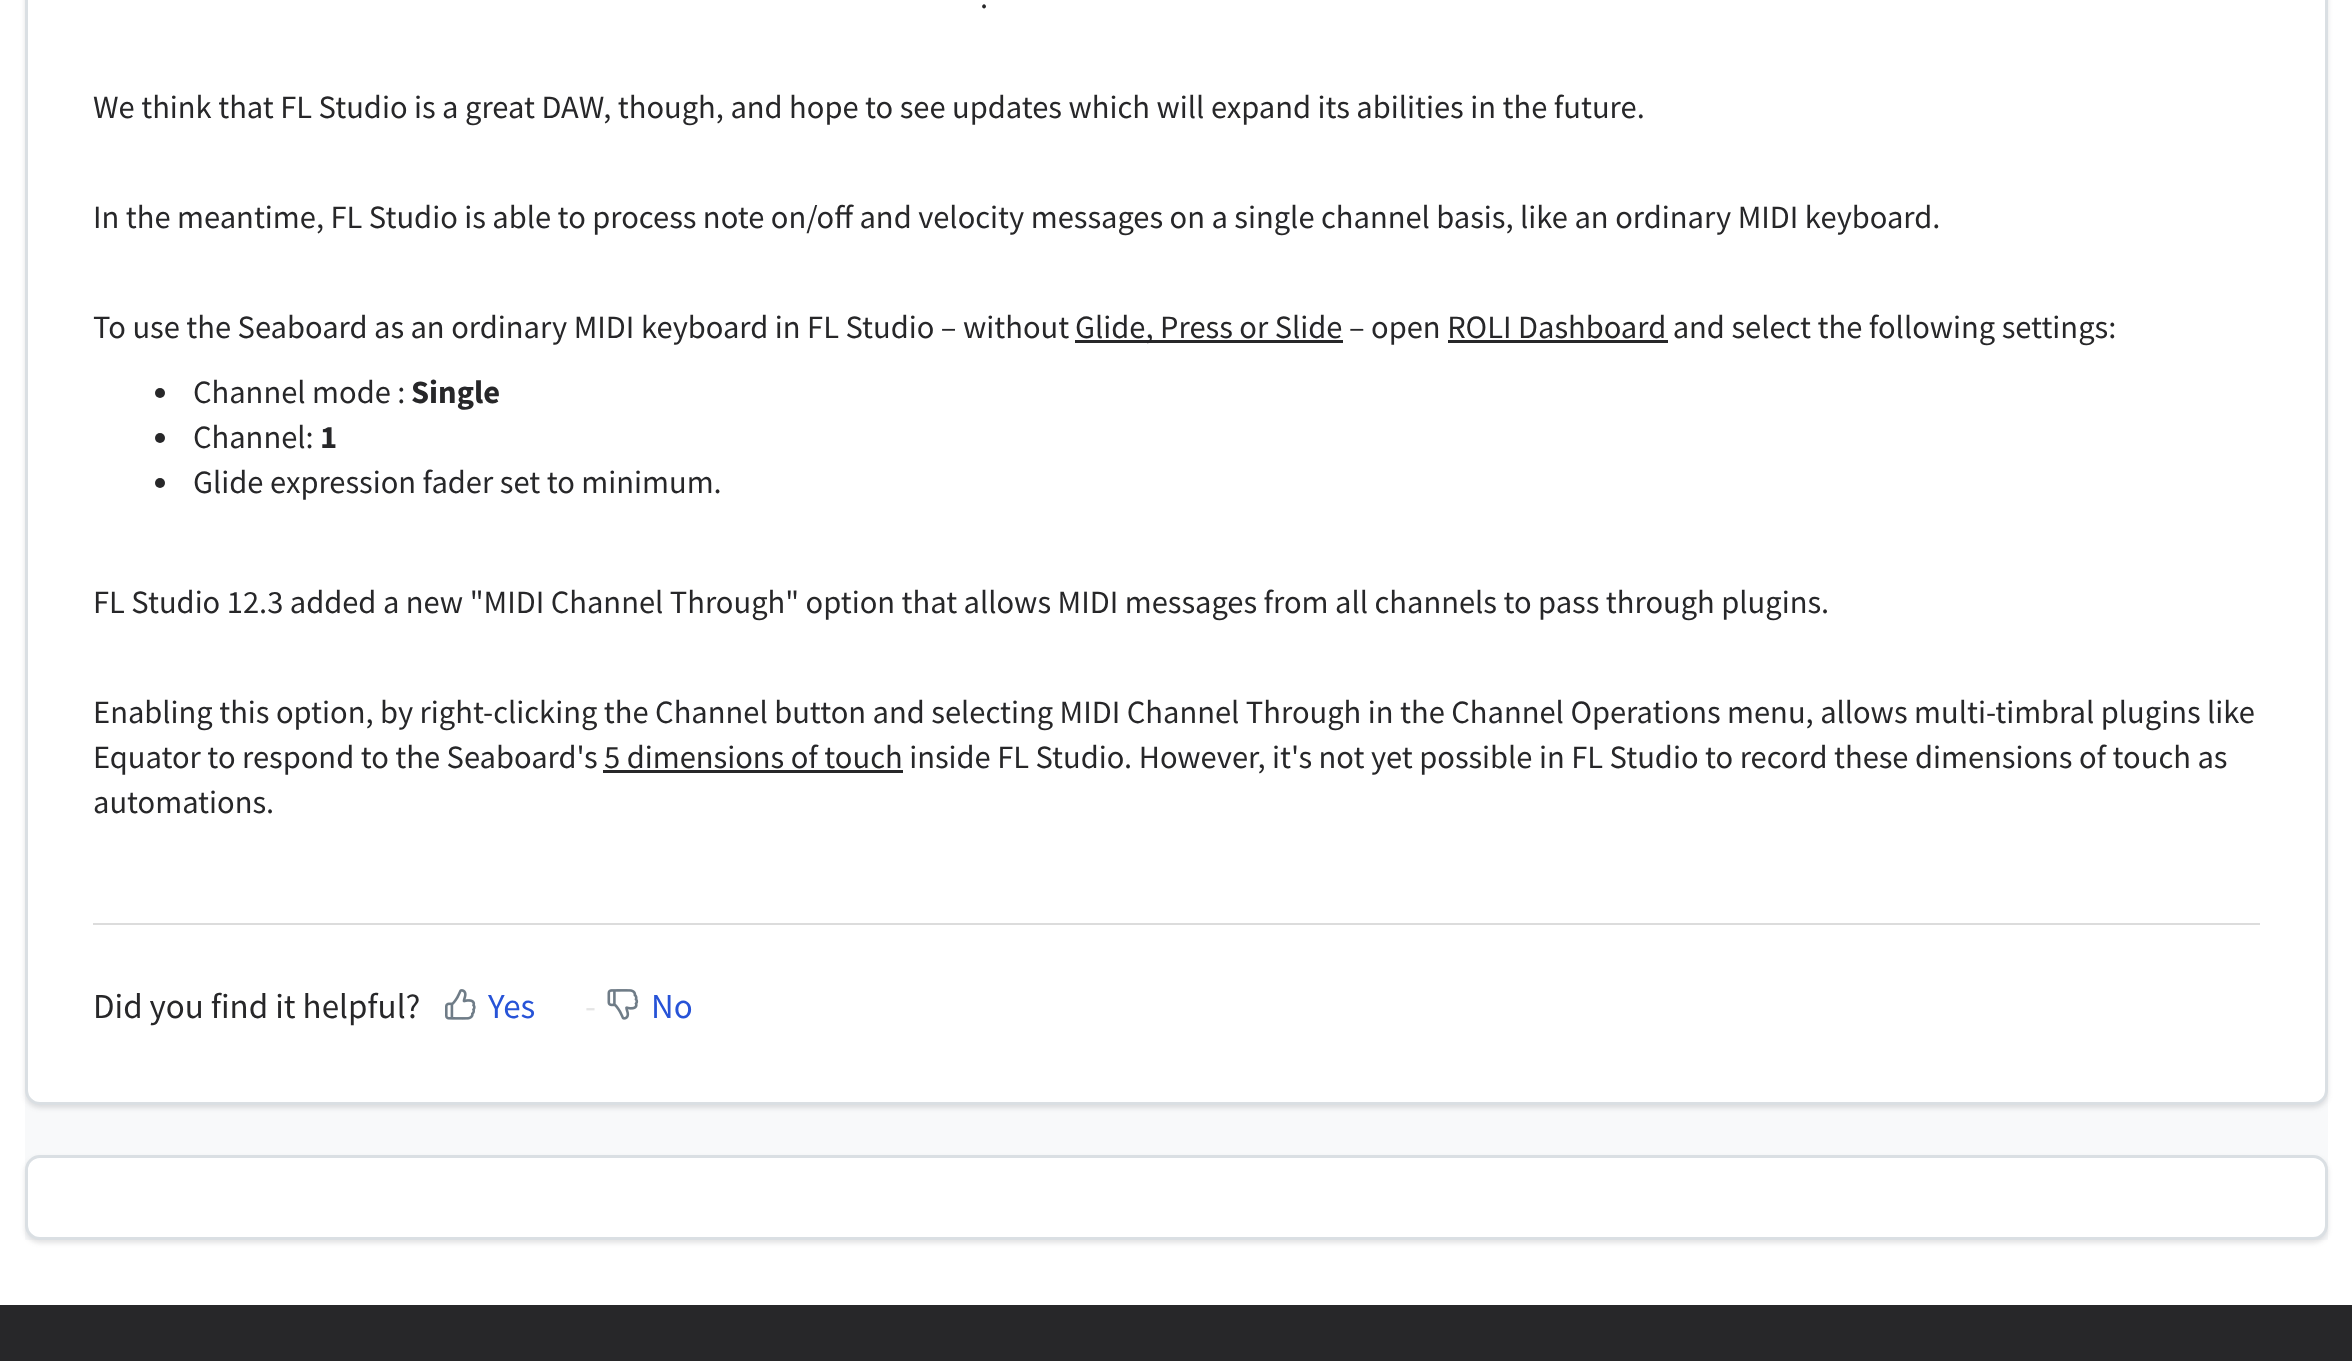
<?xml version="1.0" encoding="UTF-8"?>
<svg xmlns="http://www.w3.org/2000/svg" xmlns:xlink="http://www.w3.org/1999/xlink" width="2352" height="1361">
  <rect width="100%" height="100%" fill="#ffffff" />
  <rect x="25" y="1090" width="2303" height="150" fill="#f8f9fa" />
  <rect x="25" y="-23" width="2303" height="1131" rx="15" fill="#3f3f44" fill-opacity="0.15" filter="blur(2.5px)" />
  <rect x="26.5" y="-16.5" width="2300" height="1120" rx="13.5" fill="#ffffff" stroke="#dadfe3" stroke-width="3" />
  <rect x="1075" y="340" width="268" height="3" fill="#272729" />
  <rect x="1448" y="340" width="220" height="3" fill="#272729" />
  <circle cx="160" cy="393" r="5" fill="#272729" />
  <circle cx="160" cy="438" r="5" fill="#272729" />
  <circle cx="160" cy="483" r="5" fill="#272729" />
  <rect x="603" y="770" width="300" height="3" fill="#272729" />
  <rect x="93" y="923" width="2167" height="2" fill="#dcdcdc" />
  <image x="445" y="989" width="31" height="31" xlink:href="image1.png" />
  <image x="607" y="989" width="32" height="31" xlink:href="image2.png" />
  <rect x="25" y="1158" width="2303" height="85" rx="15" fill="#3f3f44" fill-opacity="0.15" filter="blur(2.5px)" />
  <rect x="26.5" y="1156.5" width="2300" height="82" rx="13.5" fill="#ffffff" stroke="#dadfe3" stroke-width="3" />
  <rect y="1305" width="2352" height="56" fill="#272729" />
  <text x="980" y="8" style="font-family: Source Sans Pro; font-size: 32.5px; fill: #272729">.</text>
  <text x="93" y="118" style="font-family: Source Sans Pro; font-size: 32.5px; fill: #272729">We think that FL Studio is a great DAW, though, and hope to see updates which will expand its abilities in the future.</text>
  <text x="93" y="228" style="font-family: Source Sans Pro; font-size: 32.5px; fill: #272729">In the meantime, FL Studio is able to process note on/off and velocity messages on a single channel basis, like an ordinary MIDI keyboard.</text>
  <text x="93" y="338" style="font-family: Source Sans Pro; font-size: 32.5px; fill: #272729">To use the Seaboard as an ordinary MIDI keyboard in FL Studio – without</text>
  <text x="1075" y="338" style="font-family: Source Sans Pro; font-size: 32.5px; fill: #272729">Glide, Press or Slide – open ROLI Dashboard and select the following settings:</text>
  <text x="193" y="403" style="font-family: Source Sans Pro; font-size: 32.5px; fill: #272729">Channel mode :</text>
  <text x="411" y="403" style="font-family: Source Sans Pro; font-size: 32.5px; font-weight: bold; fill: #272729">Single</text>
  <text x="193" y="448" style="font-family: Source Sans Pro; font-size: 32.5px; fill: #272729">Channel:</text>
  <text x="320" y="448" style="font-family: Source Sans Pro; font-size: 32.5px; font-weight: bold; fill: #272729">1</text>
  <text x="193" y="493" style="font-family: Source Sans Pro; font-size: 32.5px; fill: #272729">Glide expression fader set to minimum.</text>
  <text x="93" y="613" style="font-family: Source Sans Pro; font-size: 32.5px; fill: #272729">FL Studio 12.3 added a new "MIDI Channel Through" option that allows MIDI messages from all channels to pass through plugins.</text>
  <text x="93" y="723" style="font-family: Source Sans Pro; font-size: 32.5px; fill: #272729">Enabling this option, by right-clicking the Channel button and selecting MIDI Channel Through in the Channel Operations menu, allows multi-timbral plugins like</text>
  <text x="93" y="768" style="font-family: Source Sans Pro; font-size: 32.5px; fill: #272729">Equator to respond to the Seaboard's 5 dimensions of touch inside FL Studio. However, it's not yet possible in FL Studio to record these dimensions of touch as</text>
  <text x="93" y="813" style="font-family: Source Sans Pro; font-size: 32.5px; fill: #272729">automations.</text>
  <text x="93" y="1018" style="font-family: Source Sans Pro; font-size: 35px; fill: #272729">Did you find it helpful?</text>
  <text x="488" y="1018" style="font-family: Source Sans Pro; font-size: 35px; fill: #2753d7">Yes</text>
  <text x="585" y="1018" style="font-family: Source Sans Pro; font-size: 35px; fill: #e5e5e5">-</text>
  <text x="651" y="1018" style="font-family: Source Sans Pro; font-size: 35px; fill: #2753d7">No</text>
</svg>
